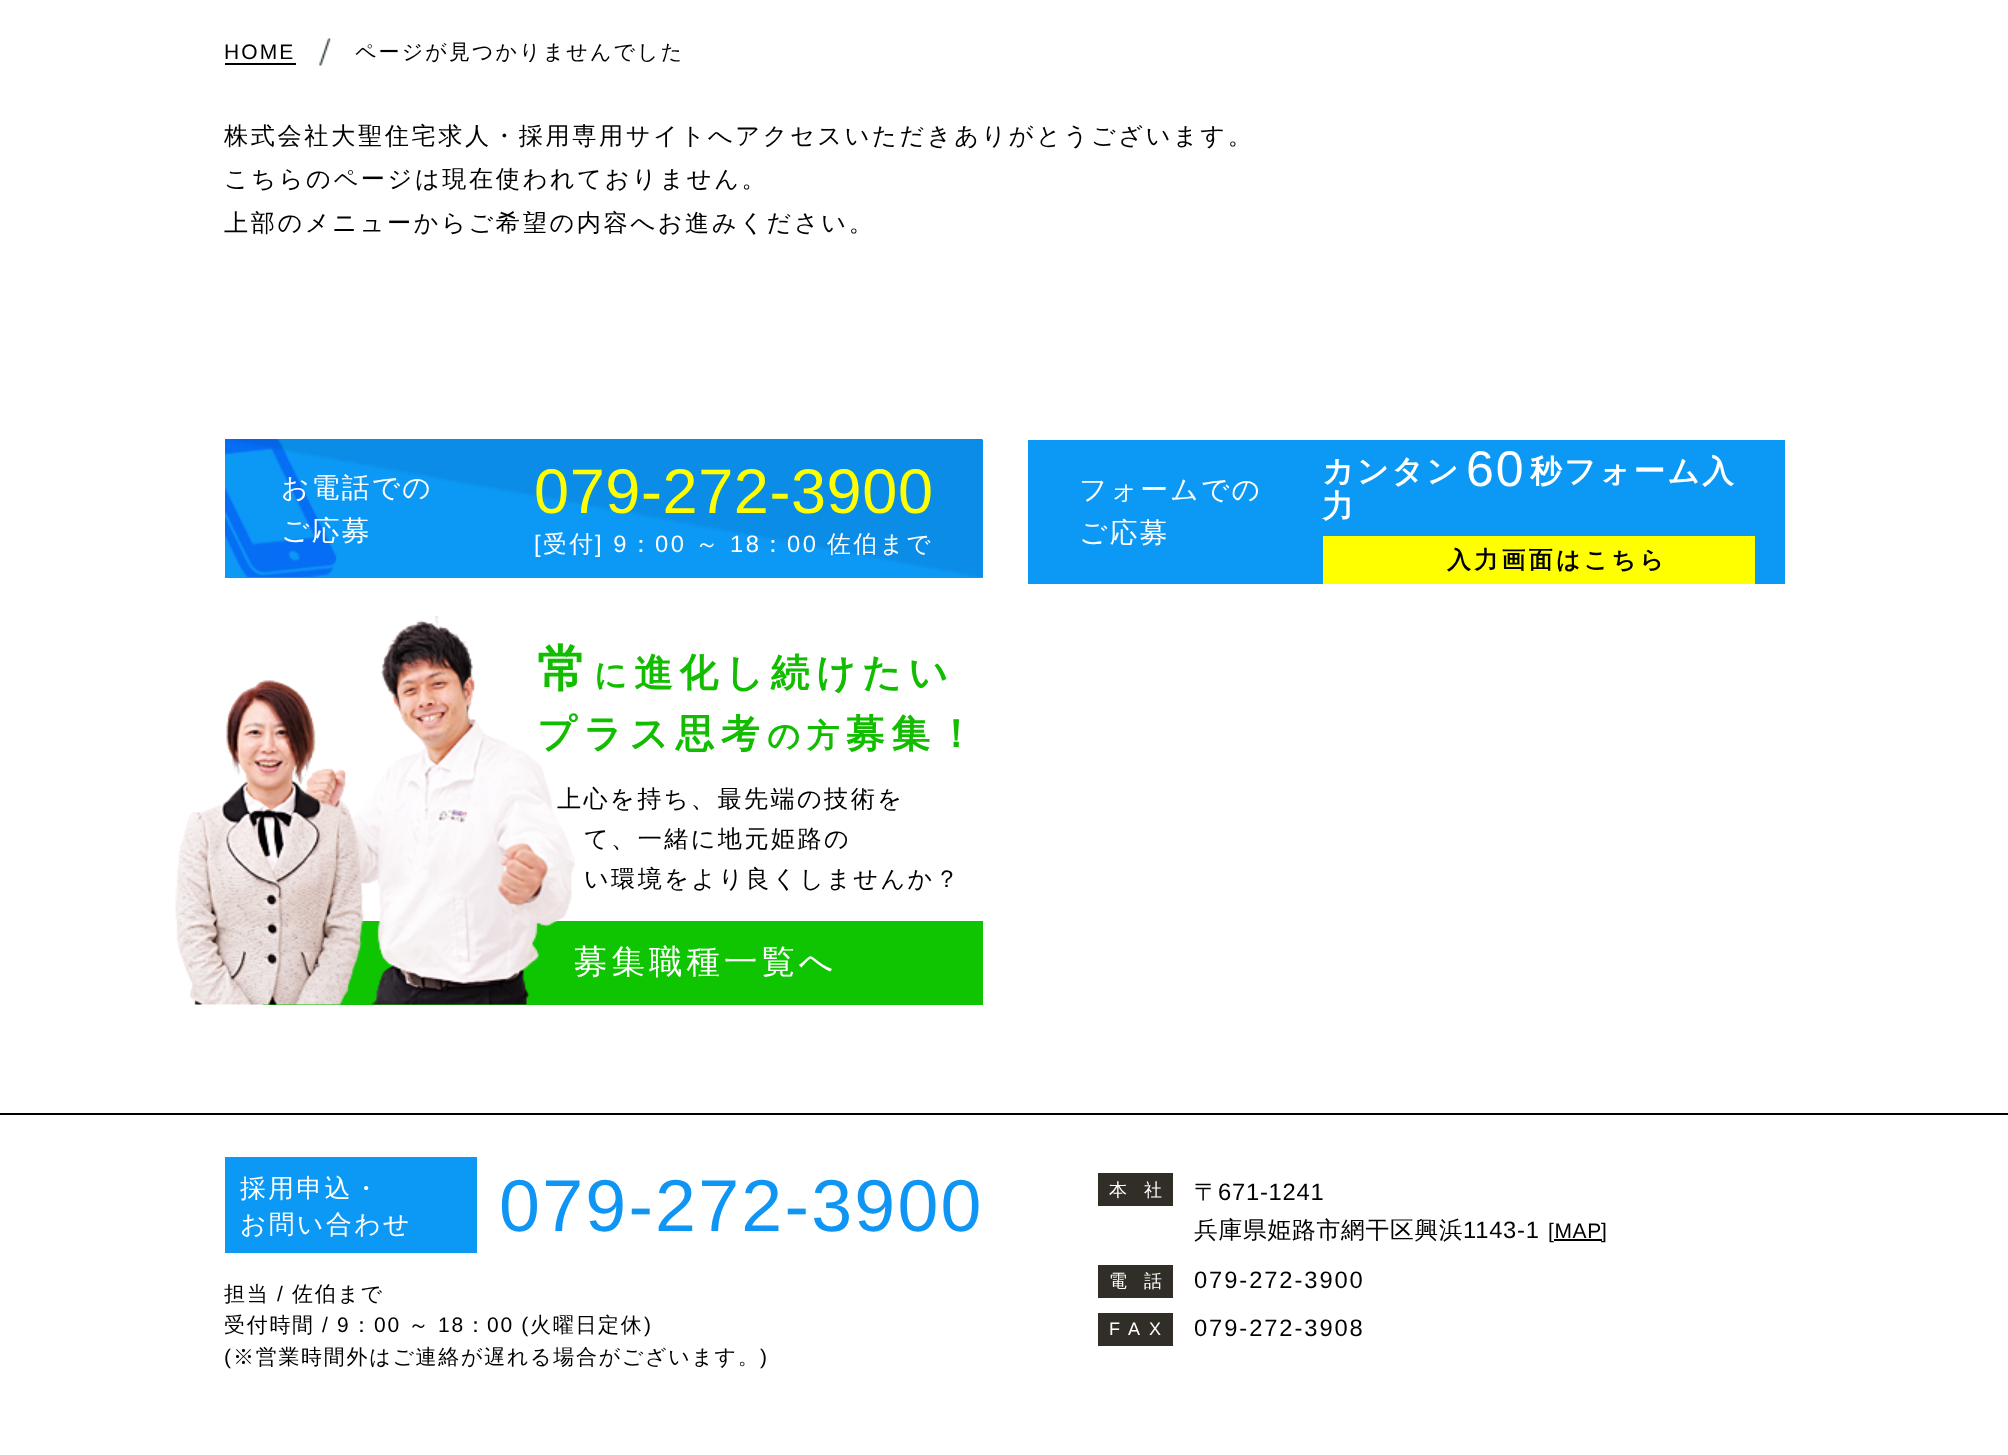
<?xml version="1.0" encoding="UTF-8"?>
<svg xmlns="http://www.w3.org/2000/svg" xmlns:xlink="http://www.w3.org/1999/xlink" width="2008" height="1455">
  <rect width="100%" height="100%" fill="#ffffff" />
  <rect x="225" y="63" width="71" height="2" fill="#000000" />
  <image x="319" y="38" width="12" height="28" xlink:href="image1.png" />
  <rect x="225" y="440" width="758" height="138" fill="#0c99f5" />
  <image x="225" y="439" width="758" height="138" xlink:href="image2.png" />
  <rect x="1028" y="440" width="757" height="144" fill="#0c99f5" />
  <rect x="1323" y="536" width="432" height="48" fill="#ffff00" />
  <rect x="263" y="921" width="720" height="84" fill="#0fc400" />
  <rect y="1113" width="2008" height="2" fill="#000000" />
  <rect x="225" y="1157" width="252" height="96" fill="#0c99f5" />
  <rect x="1098" y="1173" width="75" height="33" fill="#312e27" />
  <rect x="1554" y="1239" width="48" height="2" fill="#000000" />
  <rect x="1098" y="1265" width="75" height="33" fill="#312e27" />
  <rect x="1098" y="1313" width="75" height="33" fill="#312e27" />
  <text x="224" y="59" style="font-family: Liberation Sans; font-size: 21px; letter-spacing: 2.1px; fill: #000000">HOME</text>
  <text x="355" y="59" style="font-family: WenQuanYi Zen Hei; font-size: 21px; font-weight: 500; letter-spacing: 2.1px; fill: #000000">ページが見つかりませんでした</text>
  <text x="224" y="144" style="font-family: WenQuanYi Zen Hei; font-size: 24.15px; font-weight: 500; letter-spacing: 2.65px; fill: #000000">株式会社大聖住宅求人・採用専用サイトへアクセスいただきありがとうございます。</text>
  <text x="224" y="187" style="font-family: WenQuanYi Zen Hei; font-size: 24.15px; font-weight: 500; letter-spacing: 2.65px; fill: #000000">こちらのページは現在使われておりません。</text>
  <text x="224" y="231" style="font-family: WenQuanYi Zen Hei; font-size: 24.15px; font-weight: 500; letter-spacing: 2.65px; fill: #000000">上部のメニューからご希望の内容へお進みください。</text>
  <text x="281" y="497" style="font-family: WenQuanYi Zen Hei; font-size: 27.75px; font-weight: 500; letter-spacing: 2.25px; fill: #ffffff">お電話での</text>
  <text x="281" y="540" style="font-family: WenQuanYi Zen Hei; font-size: 27.75px; font-weight: 500; letter-spacing: 2.25px; fill: #ffffff">ご応募</text>
  <text x="534" y="513" style="font-family: Liberation Sans; font-size: 63px; letter-spacing: 0.6px; fill: #ffff00">079-272-3900</text>
  <text x="534" y="552" style="font-family: Liberation Sans; font-size: 23.75px; letter-spacing: 2.5px; fill: #ffffff">[</text>
  <text x="543" y="552" style="font-family: WenQuanYi Zen Hei; font-size: 23.75px; font-weight: 500; letter-spacing: 2.5px; fill: #ffffff">受付</text>
  <text x="595" y="552" style="font-family: Liberation Sans; font-size: 23.75px; letter-spacing: 2.5px; fill: #ffffff">] 9</text>
  <text x="629" y="552" style="font-family: WenQuanYi Zen Hei; font-size: 23.75px; font-weight: 500; letter-spacing: 2.5px; fill: #ffffff">：</text>
  <text x="655" y="552" style="font-family: Liberation Sans; font-size: 23.75px; letter-spacing: 2.5px; fill: #ffffff">00</text>
  <text x="695" y="552" style="font-family: WenQuanYi Zen Hei; font-size: 23.75px; font-weight: 500; letter-spacing: 2.5px; fill: #ffffff">～</text>
  <text x="730" y="552" style="font-family: Liberation Sans; font-size: 23.75px; letter-spacing: 2.5px; fill: #ffffff">18</text>
  <text x="761" y="552" style="font-family: WenQuanYi Zen Hei; font-size: 23.75px; font-weight: 500; letter-spacing: 2.5px; fill: #ffffff">：</text>
  <text x="787" y="552" style="font-family: Liberation Sans; font-size: 23.75px; letter-spacing: 2.5px; fill: #ffffff">00</text>
  <text x="827" y="552" style="font-family: WenQuanYi Zen Hei; font-size: 23.75px; font-weight: 500; letter-spacing: 2.5px; fill: #ffffff">佐伯まで</text>
  <text x="1079" y="499" style="font-family: WenQuanYi Zen Hei; font-size: 27.75px; font-weight: 500; letter-spacing: 2.25px; fill: #ffffff">フォームでの</text>
  <text x="1079" y="542" style="font-family: WenQuanYi Zen Hei; font-size: 27.75px; font-weight: 500; letter-spacing: 2.25px; fill: #ffffff">ご応募</text>
  <text x="1322" y="482" style="font-family: WenQuanYi Zen Hei; font-size: 31.5px; font-weight: bold; letter-spacing: 2.5px; fill: #ffffff">カンタン</text>
  <text x="1466" y="486" style="font-family: Liberation Sans; font-size: 50px; letter-spacing: 2px; fill: #ffffff">60</text>
  <text x="1530" y="482" style="font-family: WenQuanYi Zen Hei; font-size: 31.5px; font-weight: bold; letter-spacing: 2.5px; fill: #ffffff">秒フォーム入</text>
  <text x="1322" y="517" style="font-family: WenQuanYi Zen Hei; font-size: 31.5px; font-weight: bold; letter-spacing: 2.5px; fill: #ffffff">力</text>
  <text x="1447" y="568" style="font-family: WenQuanYi Zen Hei; font-size: 23.75px; font-weight: bold; letter-spacing: 3.5px; fill: #000000">入力画面はこちら</text>
  <text x="537" y="686" style="font-family: WenQuanYi Zen Hei; font-size: 50px; font-weight: bold; letter-spacing: 6.5px; fill: #12bd00">常</text>
  <text x="594" y="686" style="font-family: WenQuanYi Zen Hei; font-size: 32.5px; font-weight: bold; letter-spacing: 6.5px; fill: #12bd00">に</text>
  <text x="634" y="686" style="font-family: WenQuanYi Zen Hei; font-size: 38.75px; font-weight: bold; letter-spacing: 6.5px; fill: #12bd00">進化し続けたい</text>
  <text x="537" y="747" style="font-family: WenQuanYi Zen Hei; font-size: 38.75px; font-weight: bold; letter-spacing: 6.5px; fill: #12bd00">プラス思考</text>
  <text x="767" y="747" style="font-family: WenQuanYi Zen Hei; font-size: 32.5px; font-weight: bold; letter-spacing: 6.5px; fill: #12bd00">の方</text>
  <text x="846" y="747" style="font-family: WenQuanYi Zen Hei; font-size: 38.75px; font-weight: bold; letter-spacing: 6.5px; fill: #12bd00">募集！</text>
  <text x="557" y="807" style="font-family: WenQuanYi Zen Hei; font-size: 24.15px; font-weight: 500; letter-spacing: 2.4px; fill: #000000">上心を持ち、最先端の技術を</text>
  <image x="175" y="616" width="400" height="389" xlink:href="image3.png" />
  <text x="584" y="847" style="font-family: WenQuanYi Zen Hei; font-size: 24.15px; font-weight: 500; letter-spacing: 2.4px; fill: #000000">て、一緒に地元姫路の</text>
  <text x="584" y="887" style="font-family: WenQuanYi Zen Hei; font-size: 24.15px; font-weight: 500; letter-spacing: 2.4px; fill: #000000">い環境をより良くしませんか？</text>
  <text x="574" y="973" style="font-family: WenQuanYi Zen Hei; font-size: 33.5px; font-weight: 500; letter-spacing: 4px; fill: #ffffff">募集職種一覧へ</text>
  <text x="240" y="1197" style="font-family: WenQuanYi Zen Hei; font-size: 25.75px; font-weight: 500; letter-spacing: 2.5px; fill: #ffffff">採用申込・</text>
  <text x="240" y="1233" style="font-family: WenQuanYi Zen Hei; font-size: 25.75px; font-weight: 500; letter-spacing: 2.5px; fill: #ffffff">お問い合わせ</text>
  <text x="499" y="1231" style="font-family: Liberation Sans; font-size: 73.5px; letter-spacing: 2.25px; fill: #0f95f3">079-272-3900</text>
  <text x="224" y="1301" style="font-family: WenQuanYi Zen Hei; font-size: 21px; font-weight: 500; letter-spacing: 1.7px; fill: #000000">担当</text>
  <text x="277" y="1301" style="font-family: Liberation Sans; font-size: 21px; letter-spacing: 1.7px; fill: #000000">/</text>
  <text x="292" y="1301" style="font-family: WenQuanYi Zen Hei; font-size: 21px; font-weight: 500; letter-spacing: 1.7px; fill: #000000">佐伯まで</text>
  <text x="224" y="1332" style="font-family: WenQuanYi Zen Hei; font-size: 21px; font-weight: 500; letter-spacing: 1.7px; fill: #000000">受付時間</text>
  <text x="322" y="1332" style="font-family: Liberation Sans; font-size: 21px; letter-spacing: 1.7px; fill: #000000">/ 9</text>
  <text x="351" y="1332" style="font-family: WenQuanYi Zen Hei; font-size: 21px; font-weight: 500; letter-spacing: 1.7px; fill: #000000">：</text>
  <text x="374" y="1332" style="font-family: Liberation Sans; font-size: 21px; letter-spacing: 1.7px; fill: #000000">00</text>
  <text x="408" y="1332" style="font-family: WenQuanYi Zen Hei; font-size: 21px; font-weight: 500; letter-spacing: 1.7px; fill: #000000">～</text>
  <text x="438" y="1332" style="font-family: Liberation Sans; font-size: 21px; letter-spacing: 1.7px; fill: #000000">18</text>
  <text x="465" y="1332" style="font-family: WenQuanYi Zen Hei; font-size: 21px; font-weight: 500; letter-spacing: 1.7px; fill: #000000">：</text>
  <text x="487" y="1332" style="font-family: Liberation Sans; font-size: 21px; letter-spacing: 1.7px; fill: #000000">00 (</text>
  <text x="530" y="1332" style="font-family: WenQuanYi Zen Hei; font-size: 21px; font-weight: 500; letter-spacing: 1.7px; fill: #000000">火曜日定休</text>
  <text x="644" y="1332" style="font-family: Liberation Sans; font-size: 21px; letter-spacing: 1.7px; fill: #000000">)</text>
  <text x="224" y="1364" style="font-family: Liberation Sans; font-size: 21px; letter-spacing: 1.7px; fill: #000000">(</text>
  <text x="233" y="1364" style="font-family: WenQuanYi Zen Hei; font-size: 21px; font-weight: 500; letter-spacing: 1.7px; fill: #000000">※営業時間外はご連絡が遅れる場合がございます。</text>
  <text x="760" y="1364" style="font-family: Liberation Sans; font-size: 21px; letter-spacing: 1.7px; fill: #000000">)</text>
  <text x="1109" y="1196" style="font-family: WenQuanYi Zen Hei; font-size: 18px; font-weight: 500; letter-spacing: 18px; fill: #ffffff">本</text>
  <text x="1144" y="1196" style="font-family: WenQuanYi Zen Hei; font-size: 18px; font-weight: 500; letter-spacing: 0.6px; fill: #ffffff">社</text>
  <text x="1194" y="1200" style="font-family: WenQuanYi Zen Hei; font-size: 23.75px; font-weight: 500; letter-spacing: 0.75px; fill: #000000">〒</text>
  <text x="1218" y="1200" style="font-family: Liberation Sans; font-size: 23.75px; letter-spacing: 0.75px; fill: #000000">671-1241</text>
  <text x="1194" y="1238" style="font-family: WenQuanYi Zen Hei; font-size: 23.75px; font-weight: 500; letter-spacing: 0.75px; fill: #000000">兵庫県姫路市網干区興浜</text>
  <text x="1463" y="1238" style="font-family: Liberation Sans; font-size: 23.75px; letter-spacing: 0.75px; fill: #000000">1143-1</text>
  <text x="1548" y="1238" style="font-family: Liberation Sans; font-size: 21px; letter-spacing: 0.6px; fill: #000000">[MAP</text>
  <text x="1601" y="1238" style="font-family: Liberation Sans; font-size: 21px; letter-spacing: 0.6px; fill: #000000">]</text>
  <text x="1109" y="1287" style="font-family: WenQuanYi Zen Hei; font-size: 18px; font-weight: 500; letter-spacing: 18px; fill: #ffffff">電</text>
  <text x="1144" y="1287" style="font-family: WenQuanYi Zen Hei; font-size: 18px; font-weight: 500; letter-spacing: 0.6px; fill: #ffffff">話</text>
  <text x="1194" y="1288" style="font-family: Liberation Sans; font-size: 23.75px; letter-spacing: 1.9px; fill: #000000">079-272-3900</text>
  <text x="1109" y="1335" style="font-family: Liberation Sans; font-size: 18px; letter-spacing: 9px; fill: #ffffff">FA</text>
  <text x="1149" y="1335" style="font-family: Liberation Sans; font-size: 18px; letter-spacing: 0.6px; fill: #ffffff">X</text>
  <text x="1194" y="1336" style="font-family: Liberation Sans; font-size: 23.75px; letter-spacing: 1.9px; fill: #000000">079-272-3908</text>
</svg>
